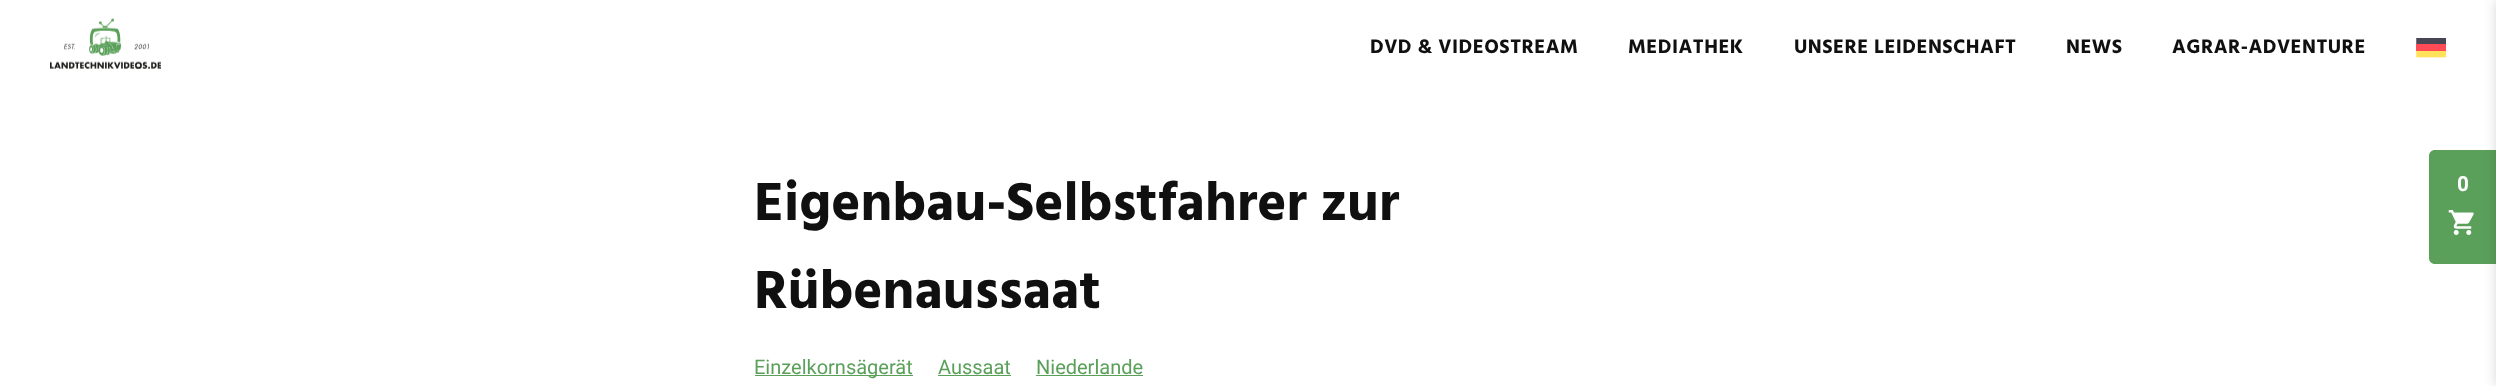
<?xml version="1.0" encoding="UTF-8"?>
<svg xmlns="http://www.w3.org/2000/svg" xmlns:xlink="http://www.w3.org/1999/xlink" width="2496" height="386">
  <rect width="100%" height="100%" fill="#ffffff" />
  <image x="50" y="18" width="111" height="51" xlink:href="image1.png" />
  <image x="2416" y="38" width="30" height="20" xlink:href="image2.png" />
  <path d="M 2435 150 h 61 v 114 h -61 c -3.5 0 -6 -2.5 -6 -6 v -102 c 0 -3.5 2.5 -6 6 -6 z" fill="#5aa05a" />
  <image x="2448" y="210" width="26" height="25" xlink:href="image3.png" />
  <rect x="2496" width="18" height="386" fill="#000000" fill-opacity="0.16" filter="blur(6px)" />
  <rect x="755" y="375" width="158" height="1" fill="#5aa05a" />
  <rect x="938" y="375" width="73" height="1" fill="#5aa05a" />
  <rect x="1036" y="375" width="107" height="1" fill="#5aa05a" />
  <text x="1370" y="53" style="font-family: Hind; font-size: 20px; font-weight: bold; letter-spacing: 0.5px; fill: #101010">DVD &amp; VIDEOSTREAM</text>
  <text x="1628" y="53" style="font-family: Hind; font-size: 20px; font-weight: bold; letter-spacing: 0.5px; fill: #101010">MEDIATHEK</text>
  <text x="1794" y="53" style="font-family: Hind; font-size: 20px; font-weight: bold; letter-spacing: 0.5px; fill: #101010">UNSERE LEIDENSCHAFT</text>
  <text x="2066" y="53" style="font-family: Hind; font-size: 20px; font-weight: bold; letter-spacing: 0.5px; fill: #101010">NEWS</text>
  <text x="2172" y="53" style="font-family: Hind; font-size: 20px; font-weight: bold; letter-spacing: 0.5px; fill: #101010">AGRAR-ADVENTURE</text>
  <text x="2457" y="191" style="font-family: Roboto; font-size: 20px; font-weight: bold; fill: #ffffff">0</text>
  <text x="754" y="220" style="font-family: Hind; font-size: 55px; font-weight: bold; fill: #101010">Eigenbau-Selbstfahrer zur</text>
  <text x="754" y="308" style="font-family: Hind; font-size: 55px; font-weight: bold; fill: #101010">Rübenaussaat</text>
  <text x="754" y="374" style="font-family: Roboto; font-size: 20px; fill: #5aa05a">Einzelkornsägerät</text>
  <text x="938" y="374" style="font-family: Roboto; font-size: 20px; fill: #5aa05a">Aussaat</text>
  <text x="1036" y="374" style="font-family: Roboto; font-size: 20px; fill: #5aa05a">Niederlande</text>
</svg>
